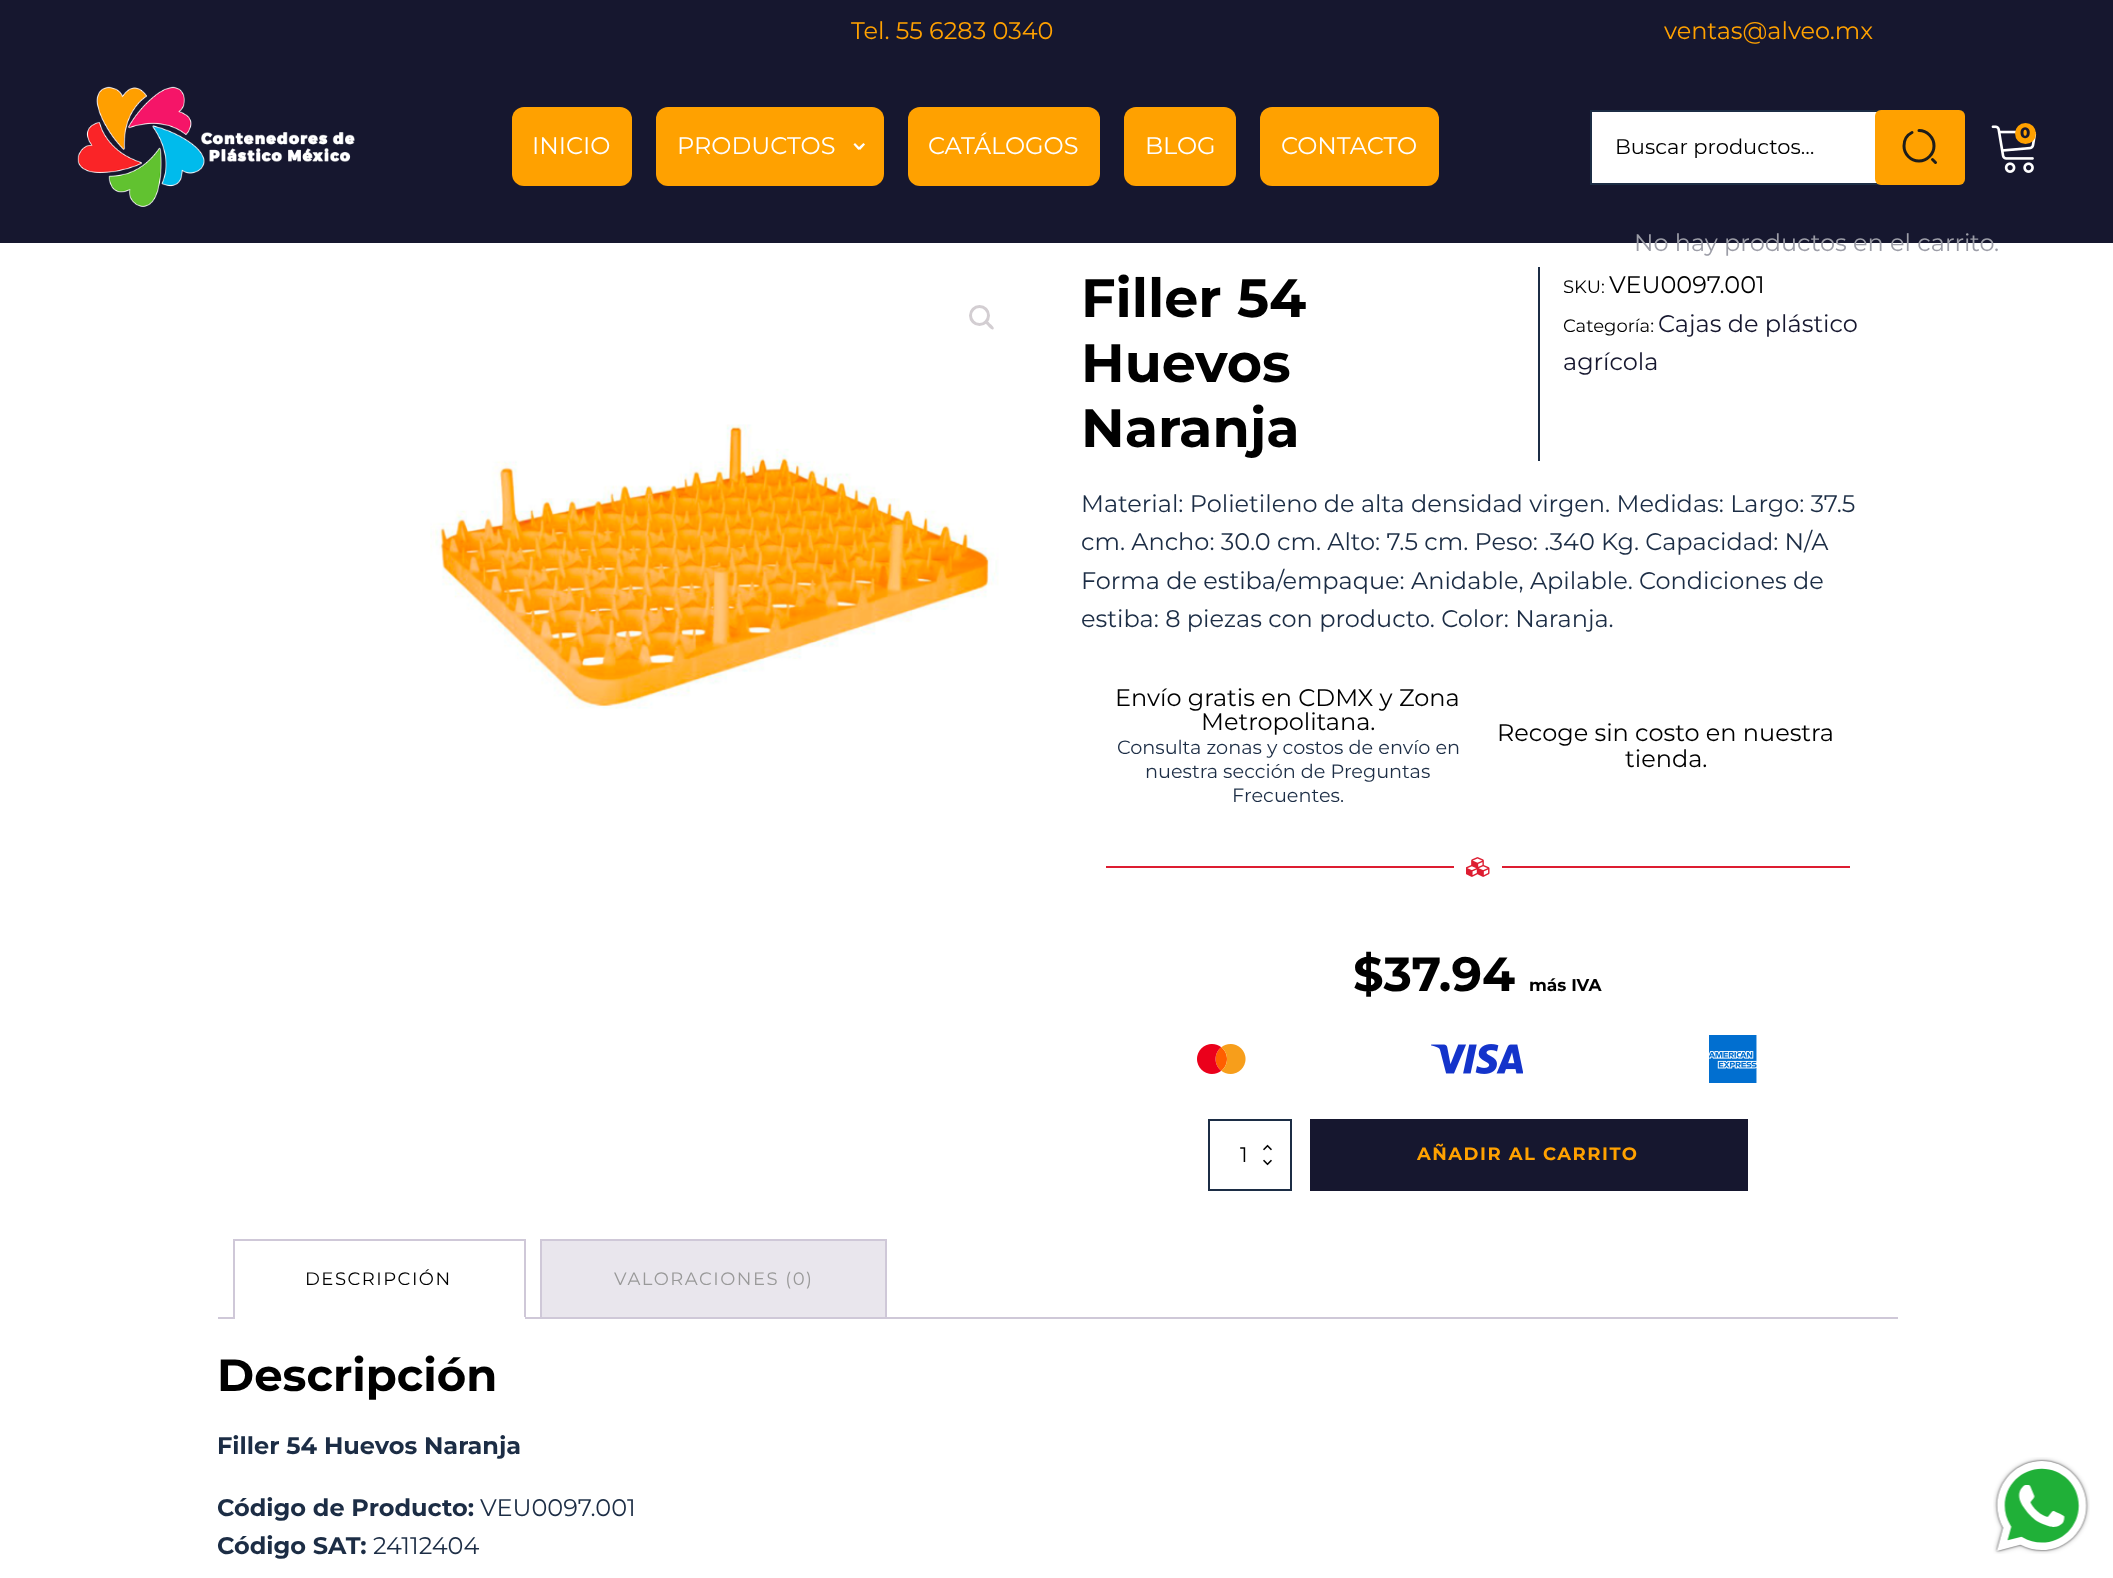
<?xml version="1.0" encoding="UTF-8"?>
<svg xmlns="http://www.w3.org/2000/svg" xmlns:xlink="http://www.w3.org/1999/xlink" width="2113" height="1578">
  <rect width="100%" height="100%" fill="#ffffff" />
  <rect width="2113" height="243" fill="#16172f" />
  <image x="77" y="86" width="278" height="121" xlink:href="image1.png" />
  <rect x="512" y="107" width="120" height="79" rx="12" fill="#ffa100" />
  <rect x="656" y="107" width="228" height="79" rx="12" fill="#ffa100" />
  <path d="M 855 143 l 5 5 l -1.5 2 l -5 -5.5 z" fill="#ffffff" />
  <path d="M 858 148 l 5.5 -5 l 1.5 1.5 l -5 5.5 z" fill="#ffffff" />
  <rect x="908" y="107" width="192" height="79" rx="12" fill="#ffa100" />
  <rect x="1124" y="107" width="112" height="79" rx="12" fill="#ffa100" />
  <rect x="1260" y="107" width="179" height="79" rx="12" fill="#ffa100" />
  <image x="1991" y="125" width="46" height="48" xlink:href="image2.png" />
  <circle cx="2025.5" cy="133.5" r="10.5" fill="#ffa100" />
  <path d="M 1591 111 h 368 c 3 0 5 2 5 5 v 63 c 0 3 -2 5 -5 5 h -368 z" fill="#ffffff" stroke="#1c2d45" stroke-width="2" />
  <rect x="1875" y="110" width="90" height="75" rx="6" fill="#ffa100" />
  <path d="M 1919 130.5 c 8 0 15 7 15 15.5 c 0 8 -7 15 -15 15 c -8.5 0 -15 -7 -15 -15 c 0 -6 3 -11 8 -13.5 m 23.5 30 l -3 -3" fill="none" stroke="#1d1d1b" stroke-width="3" stroke-linecap="round" stroke-linejoin="round" />
  <circle cx="979.5" cy="315.5" r="9" fill="none" stroke="#d3ced2" stroke-width="3" />
  <path d="M 985 320.5 c 1.5 -1.5 4.5 2.5 5.5 3.5 c 0.5 0.5 4.5 3.5 3 5 c -1.5 2 -4.5 -2 -5.5 -3 c -0.5 -1 -4.5 -3.5 -3 -5.5 z" fill="#d3ced2" />
  <image x="430" y="424" width="569" height="285" xlink:href="image3.png" />
  <rect x="1538" y="267" width="2" height="194" fill="#1c2d45" />
  <rect x="1106" y="866" width="348" height="2" fill="#dd1d31" />
  <image x="1466" y="857" width="24" height="20" xlink:href="image4.png" />
  <rect x="1502" y="866" width="348" height="2" fill="#dd1d31" />
  <image x="1197" y="1044" width="49" height="30" xlink:href="image5.png" />
  <image x="1431" y="1044" width="92" height="30" xlink:href="image6.png" />
  <image x="1709" y="1035" width="48" height="48" xlink:href="image7.png" />
  <image x="1263" y="1144" width="9" height="7" xlink:href="image8.png" />
  <image x="1263" y="1159" width="9" height="7" xlink:href="image9.png" />
  <rect x="1209" y="1120" width="82" height="70" fill="none" stroke="#1c2d45" stroke-width="2" />
  <rect x="1310" y="1119" width="438" height="72" fill="#16172f" />
  <rect x="233" y="1239" width="292" height="2" fill="#cfc8d8" />
  <rect x="541" y="1240" width="345" height="78" fill="#e9e6ed" stroke="#cfc8d8" stroke-width="2" />
  <rect x="218" y="1317" width="1680" height="2" fill="#cfc8d8" />
  <rect x="524" y="1239" width="2" height="80" fill="#cfc8d8" />
  <rect x="233" y="1317" width="292" height="2" fill="#ffffff" />
  <rect x="233" y="1239" width="2" height="80" fill="#cfc8d8" />
  <image x="1993" y="1457" width="97" height="97" xlink:href="image10.png" />
  <text x="851" y="39" style="font-family: Montserrat; font-size: 24px; font-weight: 100; fill: #ffa100">Tel. 55 6283 0340</text>
  <text x="1664" y="39" style="font-family: Montserrat; font-size: 24px; font-weight: 100; fill: #ffa100">ventas@alveo.mx</text>
  <text x="532" y="154" style="font-family: Montserrat; font-size: 24px; font-weight: 100; fill: #ffffff">INICIO</text>
  <text x="677" y="154" style="font-family: Montserrat; font-size: 24px; font-weight: 100; fill: #ffffff">PRODUCTOS</text>
  <text x="928" y="154" style="font-family: Montserrat; font-size: 24px; font-weight: 100; fill: #ffffff">CATÁLOGOS</text>
  <text x="1145" y="154" style="font-family: Montserrat; font-size: 24px; font-weight: 100; fill: #ffffff">BLOG</text>
  <text x="1281" y="154" style="font-family: Montserrat; font-size: 24px; font-weight: 100; fill: #ffffff">CONTACTO</text>
  <text x="2020" y="138" style="font-family: 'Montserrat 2'; font-size: 15px; font-weight: 100; fill: #16172f">0</text>
  <text x="1634" y="251" style="font-family: Montserrat; font-size: 24px; font-weight: 100; fill: #9c9da7">No hay productos en el carrito.</text>
  <text x="1615" y="154" style="font-family: Montserrat; font-size: 21px; font-weight: 100; fill: #000000">Buscar productos…</text>
  <text x="1081" y="317" style="font-family: 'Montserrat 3'; font-size: 54px; font-weight: 100; fill: #000000">Filler 54</text>
  <text x="1081" y="382" style="font-family: 'Montserrat 3'; font-size: 54px; font-weight: 100; fill: #000000">Huevos</text>
  <text x="1081" y="447" style="font-family: 'Montserrat 3'; font-size: 54px; font-weight: 100; fill: #000000">Naranja</text>
  <text x="1563" y="293" style="font-family: Montserrat; font-size: 18px; font-weight: 100; fill: #000000">SKU:</text>
  <text x="1609" y="293" style="font-family: Montserrat; font-size: 24px; font-weight: 100; fill: #000000">VEU0097.001</text>
  <text x="1563" y="332" style="font-family: Montserrat; font-size: 18px; font-weight: 100; fill: #000000">Categoría:</text>
  <text x="1658" y="332" style="font-family: Montserrat; font-size: 24px; font-weight: 100; fill: #16172f">Cajas de plástico</text>
  <text x="1563" y="370" style="font-family: Montserrat; font-size: 24px; font-weight: 100; fill: #16172f">agrícola</text>
  <text x="1081" y="512" style="font-family: Montserrat; font-size: 24px; font-weight: 100; fill: #1c2d45">Material: Polietileno de alta densidad virgen. Medidas: Largo: 37.5</text>
  <text x="1081" y="550" style="font-family: Montserrat; font-size: 24px; font-weight: 100; fill: #1c2d45">cm. Ancho: 30.0 cm. Alto: 7.5 cm. Peso: .340 Kg. Capacidad: N/A</text>
  <text x="1081" y="589" style="font-family: Montserrat; font-size: 24px; font-weight: 100; fill: #1c2d45">Forma de estiba/empaque: Anidable, Apilable. Condiciones de</text>
  <text x="1081" y="627" style="font-family: Montserrat; font-size: 24px; font-weight: 100; fill: #1c2d45">estiba: 8 piezas con producto. Color: Naranja.</text>
  <text x="1115" y="706" style="font-family: Montserrat; font-size: 24px; font-weight: 100; fill: #000000">Envío gratis en CDMX y Zona</text>
  <text x="1201" y="730" style="font-family: Montserrat; font-size: 24px; font-weight: 100; fill: #000000">Metropolitana.</text>
  <text x="1117" y="754" style="font-family: Montserrat; font-size: 19.25px; font-weight: 100; fill: #1c2d45">Consulta zonas y costos de envío en</text>
  <text x="1145" y="778" style="font-family: Montserrat; font-size: 19.25px; font-weight: 100; fill: #1c2d45">nuestra sección de Preguntas</text>
  <text x="1232" y="802" style="font-family: Montserrat; font-size: 19.25px; font-weight: 100; fill: #1c2d45">Frecuentes.</text>
  <text x="1497" y="741" style="font-family: Montserrat; font-size: 24px; font-weight: 100; fill: #000000">Recoge sin costo en nuestra</text>
  <text x="1625" y="767" style="font-family: Montserrat; font-size: 24px; font-weight: 100; fill: #000000">tienda.</text>
  <text x="1353" y="991" style="font-family: 'Montserrat 3'; font-size: 48px; font-weight: 100; fill: #000000">$37.94</text>
  <text x="1529" y="991" style="font-family: 'Montserrat 3'; font-size: 17px; font-weight: 100; fill: #000000">más IVA</text>
  <text x="1240" y="1162" style="font-family: Montserrat; font-size: 21px; font-weight: 100; fill: #000000">1</text>
  <text x="1417" y="1160" style="font-family: 'Montserrat 3'; font-size: 18px; font-weight: 100; letter-spacing: 1.5px; fill: #ffa100">AÑADIR AL CARRITO</text>
  <text x="305" y="1285" style="font-family: Montserrat; font-size: 18px; font-weight: 100; letter-spacing: 1.5px; fill: #000000">DESCRIPCIÓN</text>
  <text x="614" y="1285" style="font-family: Montserrat; font-size: 18px; font-weight: 100; letter-spacing: 1.5px; fill: #999999">VALORACIONES (0)</text>
  <text x="217" y="1391" style="font-family: 'Montserrat 3'; font-size: 45px; font-weight: 100; fill: #000000">Descripción</text>
  <text x="217" y="1454" style="font-family: 'Montserrat 3'; font-size: 24px; font-weight: 100; fill: #1c2d45">Filler 54 Huevos Naranja</text>
  <text x="217" y="1516" style="font-family: 'Montserrat 3'; font-size: 24px; font-weight: 100; fill: #1c2d45">Código de Producto:</text>
  <text x="480" y="1516" style="font-family: Montserrat; font-size: 24px; font-weight: 100; fill: #1c2d45">VEU0097.001</text>
  <text x="217" y="1554" style="font-family: 'Montserrat 3'; font-size: 24px; font-weight: 100; fill: #1c2d45">Código SAT:</text>
  <text x="373" y="1554" style="font-family: Montserrat; font-size: 24px; font-weight: 100; fill: #1c2d45">24112404</text>
</svg>
